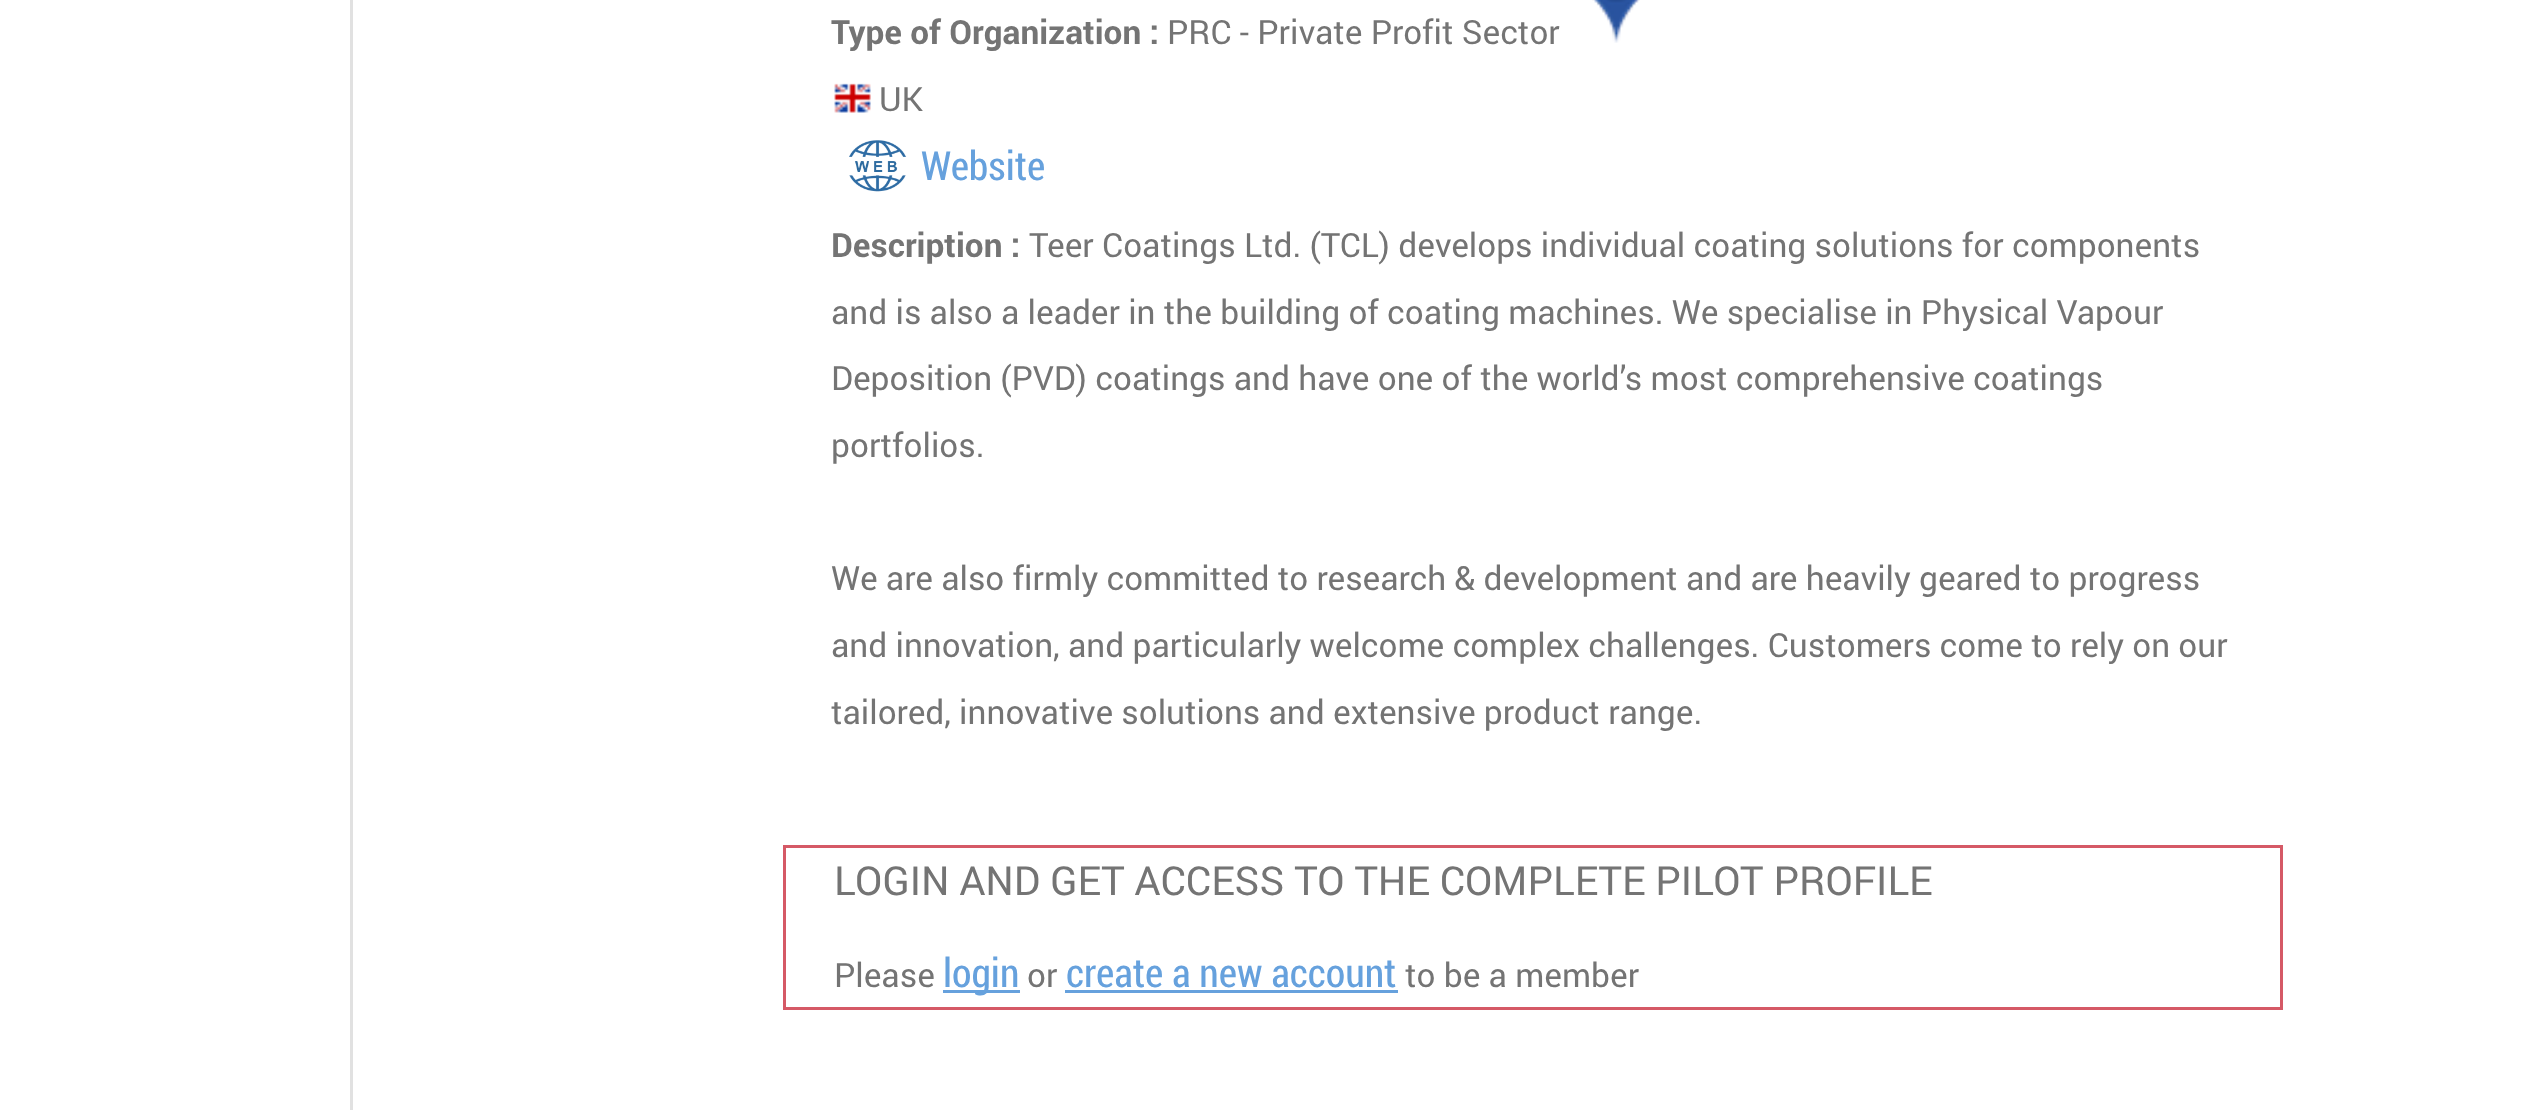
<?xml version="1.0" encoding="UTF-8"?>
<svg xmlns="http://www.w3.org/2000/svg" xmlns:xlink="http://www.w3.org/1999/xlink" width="2524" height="1110">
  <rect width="100%" height="100%" fill="#ffffff" />
  <rect x="350" width="3" height="1110" fill="#e1e1e1" />
  <image x="1592" y="0" width="48" height="43" xlink:href="image1.png" />
  <image x="834" y="83" width="37" height="30" xlink:href="image2.png" />
  <image x="849" y="140" width="58" height="52" xlink:href="image3.png" />
  <rect x="784.5" y="846.5" width="1497" height="162" fill="none" stroke="#d55966" stroke-width="3" />
  <rect x="943" y="990" width="77" height="3" fill="#66a1dd" />
  <rect x="1065" y="990" width="333" height="3" fill="#66a1dd" />
  <text x="831" y="44" style="font-family: Roboto; font-size: 33.35px; font-weight: bold; fill: #747474">Type of Organization :</text>
  <text x="1167" y="44" style="font-family: Roboto; font-size: 33.35px; fill: #747474">PRC - Private Profit Sector</text>
  <text x="879" y="111" style="font-family: Roboto; font-size: 33.35px; fill: #747474">UK</text>
  <text x="921" y="180" style="font-family: Roboto Condensed; font-size: 40px; fill: #66a1dd">Website</text>
  <text x="831" y="257" style="font-family: Roboto; font-size: 33.35px; font-weight: bold; fill: #747474">Description :</text>
  <text x="1029" y="257" style="font-family: Roboto; font-size: 33.35px; fill: #747474">Teer Coatings Ltd. (TCL) develops individual coating solutions for components</text>
  <text x="831" y="324" style="font-family: Roboto; font-size: 33.35px; fill: #747474">and is also a leader in the building of coating machines. We specialise in Physical Vapour</text>
  <text x="831" y="390" style="font-family: Roboto; font-size: 33.35px; fill: #747474">Deposition (PVD) coatings and have one of the world’s most comprehensive coatings</text>
  <text x="831" y="457" style="font-family: Roboto; font-size: 33.35px; fill: #747474">portfolios.</text>
  <text x="831" y="590" style="font-family: Roboto; font-size: 33.35px; fill: #747474">We are also firmly committed to research &amp; development and are heavily geared to progress</text>
  <text x="831" y="657" style="font-family: Roboto; font-size: 33.35px; fill: #747474">and innovation, and particularly welcome complex challenges. Customers come to rely on our</text>
  <text x="831" y="724" style="font-family: Roboto; font-size: 33.35px; fill: #747474">tailored, innovative solutions and extensive product range.</text>
  <text x="834" y="895" style="font-family: Roboto; font-size: 40px; fill: #747474">LOGIN AND GET ACCESS TO THE COMPLETE PILOT PROFILE</text>
  <text x="834" y="987" style="font-family: Roboto; font-size: 33.35px; fill: #747474">Please</text>
  <text x="943" y="987" style="font-family: Roboto Condensed; font-size: 40px; fill: #66a1dd">login</text>
  <text x="1027" y="987" style="font-family: Roboto; font-size: 33.35px; fill: #747474">or</text>
  <text x="1066" y="987" style="font-family: Roboto Condensed; font-size: 40px; fill: #66a1dd">create a new account</text>
  <text x="1405" y="987" style="font-family: Roboto; font-size: 33.35px; fill: #747474">to be a member</text>
</svg>
